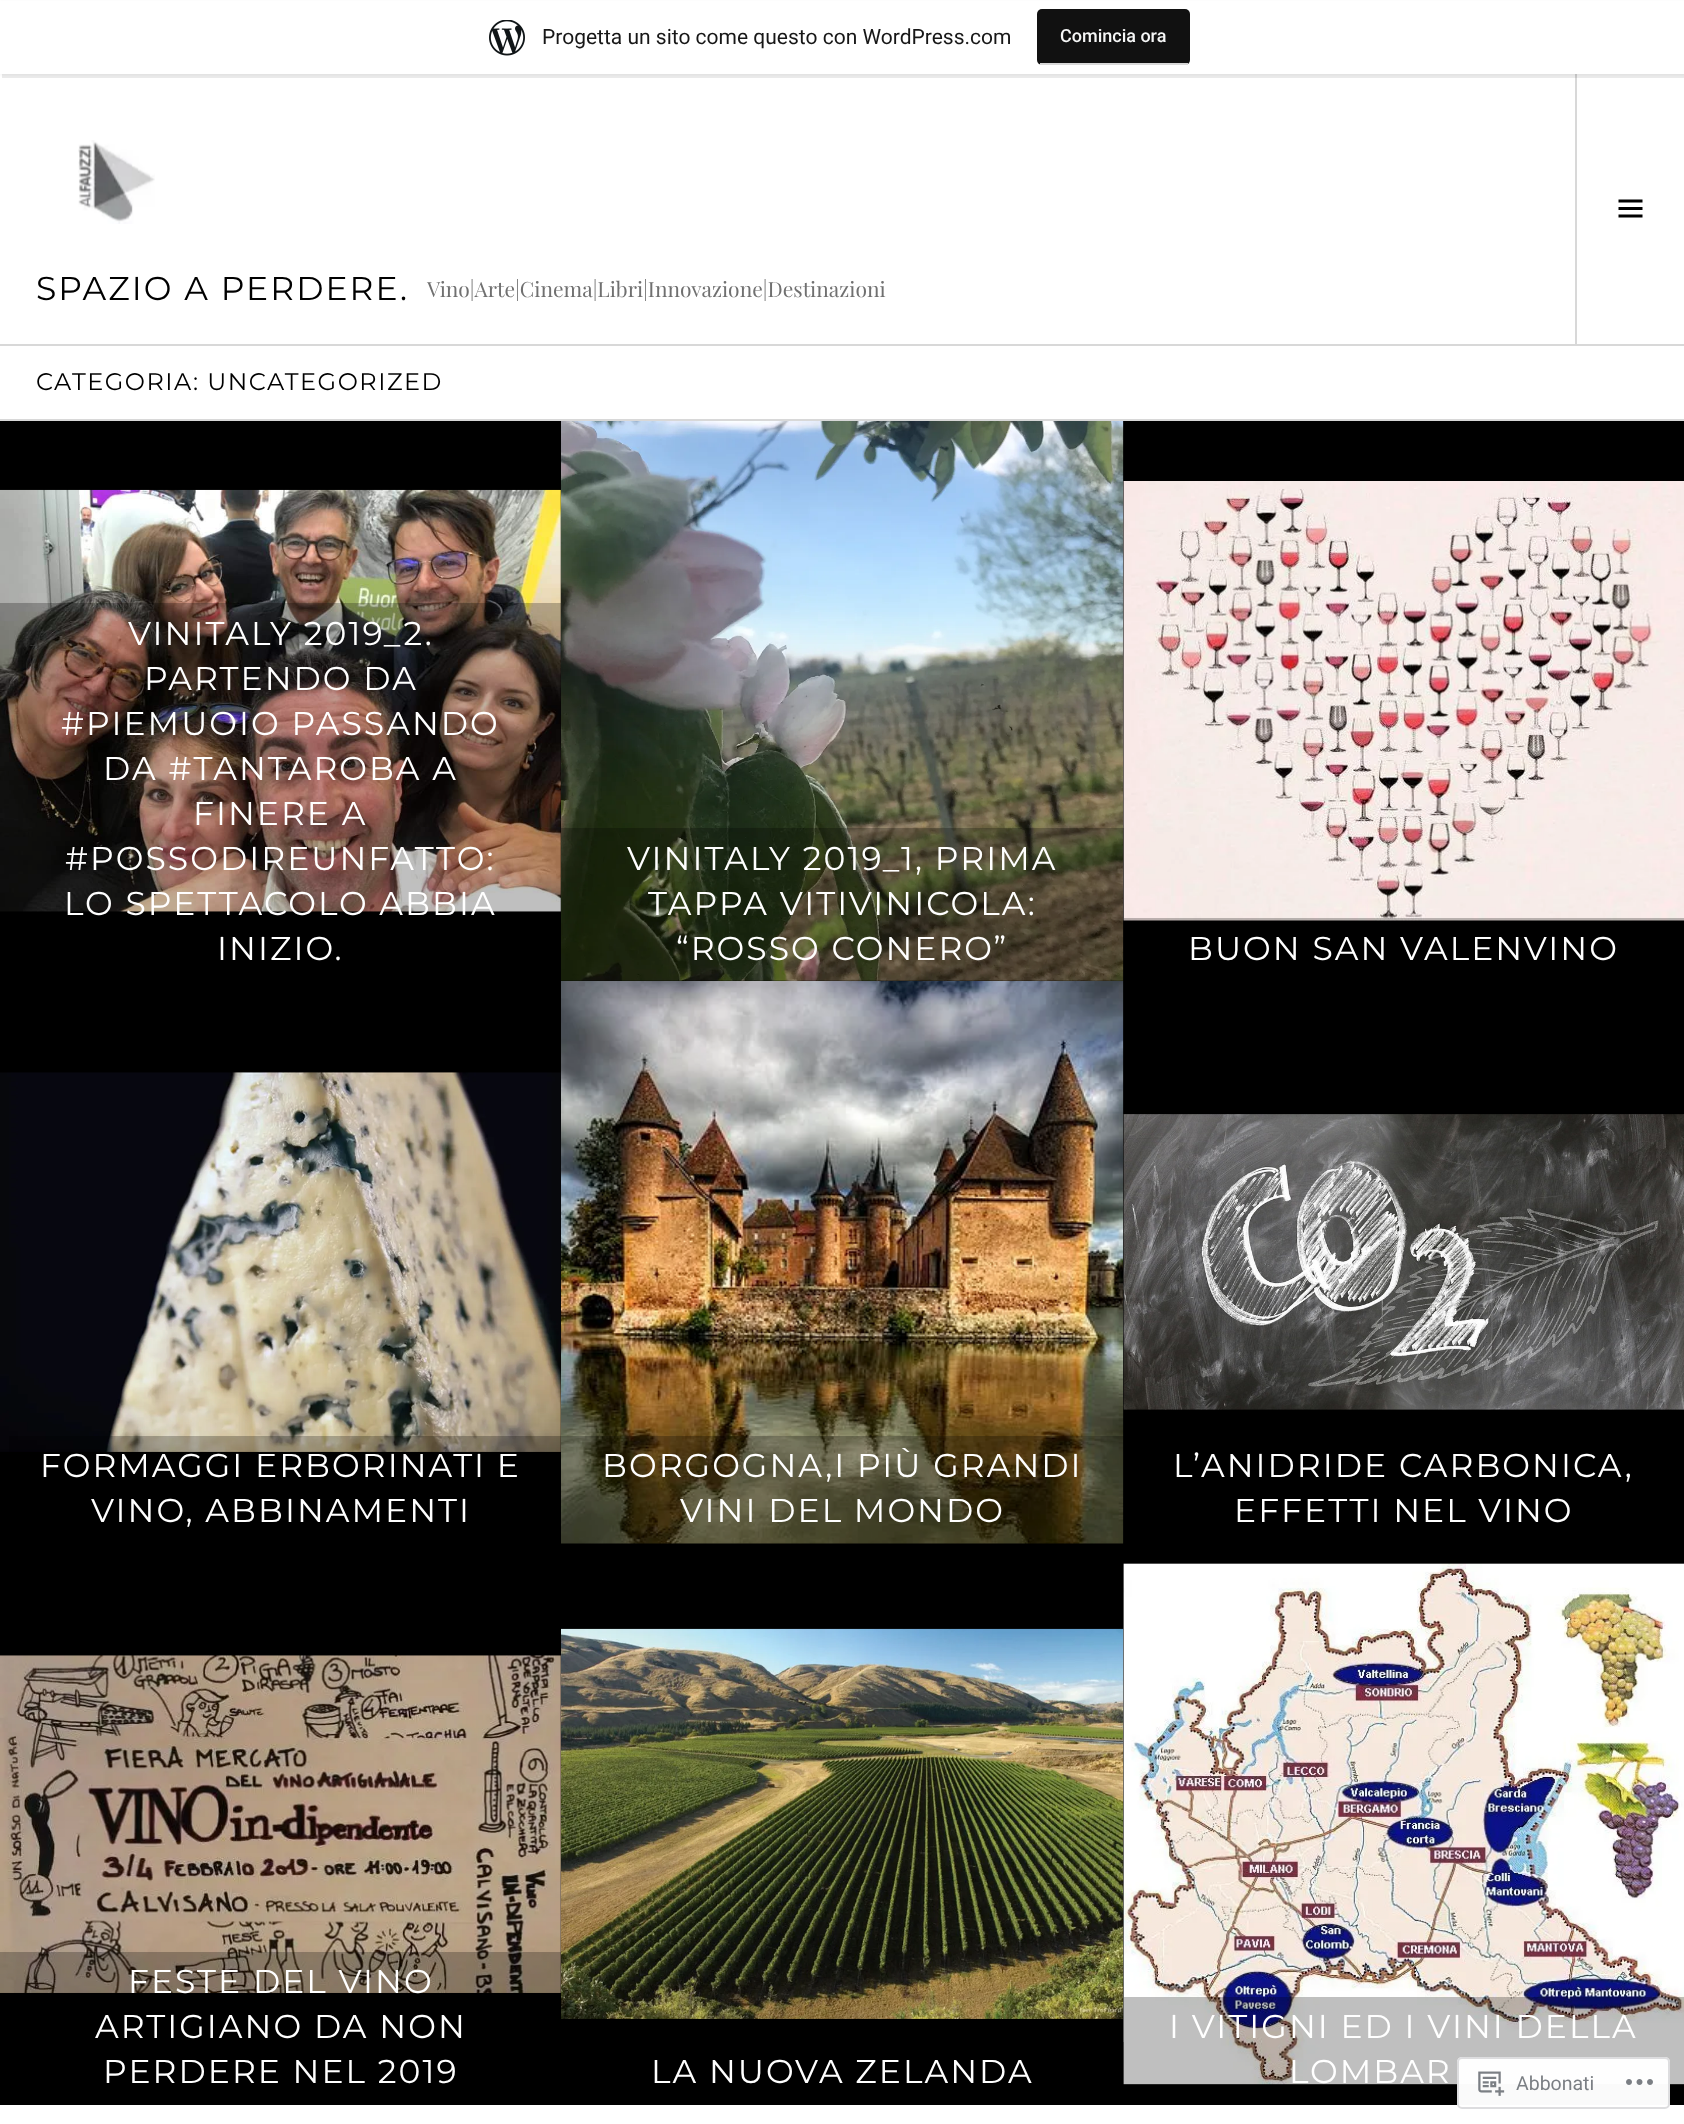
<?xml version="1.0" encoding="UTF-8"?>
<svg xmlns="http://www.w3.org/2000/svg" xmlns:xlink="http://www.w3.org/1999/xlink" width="1684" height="2124">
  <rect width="100%" height="100%" fill="#ffffff" />
  <rect x="1575" y="74" width="2" height="270" fill="#d8d8d8" />
  <rect y="2" width="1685" height="73" fill="#000000" fill-opacity="0.05" filter="blur(1.5px)" />
  <path d="M 2 74 v 4 h 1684 v -73 h -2 v 69 z" fill="#000000" fill-opacity="0.08" />
  <rect y="1" width="1684" height="73" fill="#ffffff" />
  <image x="489" y="20" width="36" height="36" xlink:href="image1.png" />
  <rect x="1037" y="9" width="153" height="56" rx="5" fill="#111111" />
  <rect x="1040" y="63" width="148" height="2" fill="#d8d8d8" />
  <rect y="344" width="1684" height="2" fill="#d8d8d8" />
  <image x="78" y="140" width="77" height="84" xlink:href="image2.png" />
  <image x="1618" y="199" width="25" height="19" xlink:href="image3.png" />
  <rect y="419" width="1684" height="2" fill="#d8d8d8" />
  <rect y="421" width="1684" height="560" fill="#000000" />
  <image x="0" y="489" width="561" height="423" xlink:href="image4.png" />
  <rect y="603" width="561" height="309" fill="#000000" fill-opacity="0.25" />
  <image x="561" y="421" width="563" height="560" xlink:href="image5.png" />
  <image x="1123" y="481" width="561" height="440" xlink:href="image6.png" />
  <rect x="561" y="828" width="563" height="153" fill="#000000" fill-opacity="0.25" />
  <rect x="1124" y="918" width="560" height="3" fill="#000000" fill-opacity="0.25" />
  <rect y="981" width="1684" height="563" fill="#000000" />
  <image x="0" y="1072" width="561" height="380" xlink:href="image7.png" />
  <rect x="9" y="1436" width="552" height="16" fill="#000000" fill-opacity="0.25" />
  <image x="561" y="981" width="563" height="563" xlink:href="image8.png" />
  <rect x="561" y="1436" width="563" height="108" fill="#000000" fill-opacity="0.25" />
  <image x="1123" y="1114" width="561" height="296" xlink:href="image9.png" />
  <rect y="1544" width="1684" height="561" fill="#000000" />
  <image x="0" y="1655" width="561" height="338" xlink:href="image10.png" />
  <rect y="1952" width="561" height="41" fill="#000000" fill-opacity="0.25" />
  <image x="561" y="1628" width="563" height="391" xlink:href="image11.png" />
  <image x="1123" y="1563" width="561" height="522" xlink:href="image12.png" />
  <rect x="1123" y="2042" width="1" height="43" fill="#000000" fill-opacity="0.25" />
  <rect x="1124" y="1997" width="560" height="88" fill="#000000" fill-opacity="0.25" />
  <rect x="1457" y="2057" width="213" height="52" rx="5" fill="#ffffff" fill-opacity="0.98" />
  <rect x="1458" y="2058" width="211" height="50" rx="4" fill="none" stroke="#dcdcde" stroke-opacity="0.98" stroke-width="2" />
  <image x="1478" y="2071" width="27" height="25" xlink:href="image13.png" />
  <image x="1626" y="2079" width="27" height="6" xlink:href="image14.png" />
  <text x="542" y="44" style="font-family: Roboto; font-size: 21px; fill: #171717">Progetta un sito come questo con WordPress.com</text>
  <text x="1060" y="42" style="font-family: Roboto; font-size: 18px; font-weight: 500; fill: #f6f7f7">Comincia ora</text>
  <text x="36" y="300" style="font-family: Montserrat; font-size: 33px; letter-spacing: 2.05px; fill: #000000">SPAZIO A PERDERE.</text>
  <text x="427" y="297" style="font-family: Playfair Display; font-size: 21px; fill: #707070">Vino|Arte|Cinema|Libri|Innovazione|Destinazioni</text>
  <text x="36" y="390" style="font-family: Montserrat; font-size: 24px; letter-spacing: 1.5px; fill: #000000">CATEGORIA: UNCATEGORIZED</text>
  <text x="128" y="645" style="font-family: Montserrat; font-size: 33px; letter-spacing: 2.05px; fill: #ffffff">VINITALY 2019_2.</text>
  <text x="144" y="690" style="font-family: Montserrat; font-size: 33px; letter-spacing: 2.05px; fill: #ffffff">PARTENDO DA</text>
  <text x="61" y="735" style="font-family: Montserrat; font-size: 33px; letter-spacing: 2.05px; fill: #ffffff">#PIEMUOIO PASSANDO</text>
  <text x="103" y="780" style="font-family: Montserrat; font-size: 33px; letter-spacing: 2.05px; fill: #ffffff">DA #TANTAROBA A</text>
  <text x="193" y="825" style="font-family: Montserrat; font-size: 33px; letter-spacing: 2.05px; fill: #ffffff">FINERE A</text>
  <text x="65" y="870" style="font-family: Montserrat; font-size: 33px; letter-spacing: 2.05px; fill: #ffffff">#POSSODIREUNFATTO:</text>
  <text x="64" y="915" style="font-family: Montserrat; font-size: 33px; letter-spacing: 2.05px; fill: #ffffff">LO SPETTACOLO ABBIA</text>
  <text x="217" y="960" style="font-family: Montserrat; font-size: 33px; letter-spacing: 2.05px; fill: #ffffff">INIZIO.</text>
  <text x="627" y="870" style="font-family: Montserrat; font-size: 33px; letter-spacing: 2.05px; fill: #ffffff">VINITALY 2019_1, PRIMA</text>
  <text x="648" y="915" style="font-family: Montserrat; font-size: 33px; letter-spacing: 2.05px; fill: #ffffff">TAPPA VITIVINICOLA:</text>
  <text x="676" y="960" style="font-family: Montserrat; font-size: 33px; letter-spacing: 2.05px; fill: #ffffff">“ROSSO CONERO”</text>
  <text x="1188" y="960" style="font-family: Montserrat; font-size: 33px; letter-spacing: 2.05px; fill: #ffffff">BUON SAN VALENVINO</text>
  <text x="40" y="1477" style="font-family: Montserrat; font-size: 33px; letter-spacing: 2.05px; fill: #ffffff">FORMAGGI ERBORINATI E</text>
  <text x="91" y="1522" style="font-family: Montserrat; font-size: 33px; letter-spacing: 2.05px; fill: #ffffff">VINO, ABBINAMENTI</text>
  <text x="602" y="1477" style="font-family: Montserrat; font-size: 33px; letter-spacing: 2.05px; fill: #ffffff">BORGOGNA,I PIÙ GRANDI</text>
  <text x="680" y="1522" style="font-family: Montserrat; font-size: 33px; letter-spacing: 2.05px; fill: #ffffff">VINI DEL MONDO</text>
  <text x="1173" y="1477" style="font-family: Montserrat; font-size: 33px; letter-spacing: 2.05px; fill: #ffffff">L’ANIDRIDE CARBONICA,</text>
  <text x="1234" y="1522" style="font-family: Montserrat; font-size: 33px; letter-spacing: 2.05px; fill: #ffffff">EFFETTI NEL VINO</text>
  <text x="128" y="1993" style="font-family: Montserrat; font-size: 33px; letter-spacing: 2.05px; fill: #ffffff">FESTE DEL VINO</text>
  <text x="95" y="2038" style="font-family: Montserrat; font-size: 33px; letter-spacing: 2.05px; fill: #ffffff">ARTIGIANO DA NON</text>
  <text x="103" y="2083" style="font-family: Montserrat; font-size: 33px; letter-spacing: 2.05px; fill: #ffffff">PERDERE NEL 2019</text>
  <text x="651" y="2083" style="font-family: Montserrat; font-size: 33px; letter-spacing: 2.05px; fill: #ffffff">LA NUOVA ZELANDA</text>
  <text x="1169" y="2038" style="font-family: Montserrat; font-size: 33px; letter-spacing: 2.05px; fill: #ffffff">I VITIGNI ED I VINI DELLA</text>
  <text x="1289" y="2083" style="font-family: Montserrat; font-size: 33px; letter-spacing: 2.05px; fill: #ffffff">LOMBAR</text>
  <text x="1516" y="2090" style="font-family: Roboto; font-size: 19.5px; fill: #7b7f84">Abbonati</text>
</svg>
